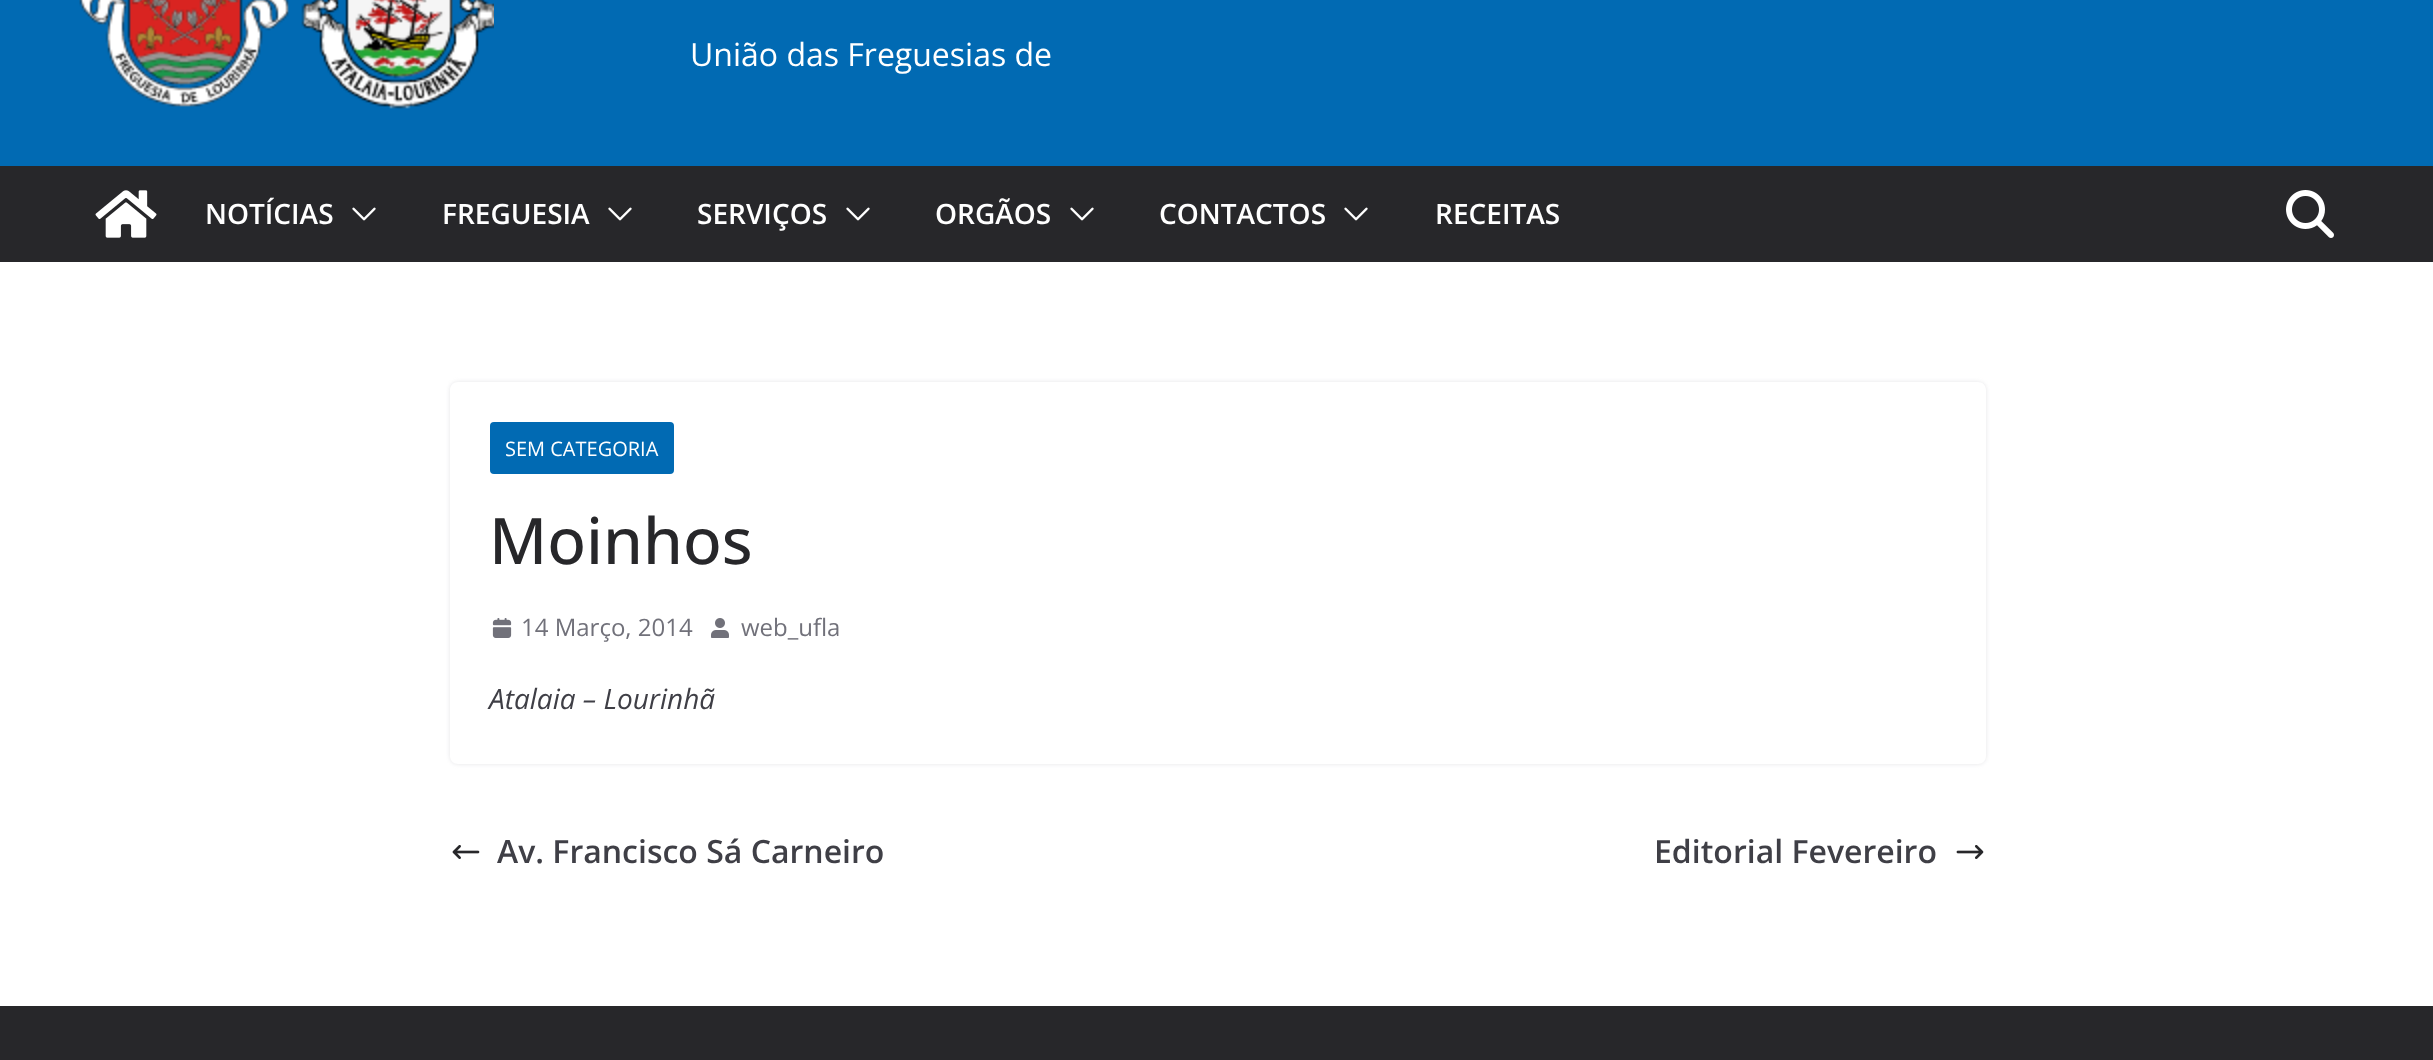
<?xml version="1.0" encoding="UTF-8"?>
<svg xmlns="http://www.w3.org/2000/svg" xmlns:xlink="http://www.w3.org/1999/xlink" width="2433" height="1060">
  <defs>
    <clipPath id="clip1"><path d="M 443 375 h 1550 v 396 h -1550 z m 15 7 h 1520 c 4.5 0 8 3.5 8 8 v 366 c 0 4.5 -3.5 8 -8 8 h -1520 c -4.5 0 -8 -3.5 -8 -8 v -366 c 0 -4.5 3.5 -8 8 -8 z" clip-rule="evenodd" /></clipPath>
  </defs>
  <rect width="100%" height="100%" fill="#ffffff" />
  <rect width="2433" height="166" fill="#016ab3" />
  <image x="79" y="0" width="415" height="109" xlink:href="image1.png" />
  <rect y="166" width="2433" height="96" fill="#27272a" />
  <image x="95" y="190" width="62" height="48" xlink:href="image2.png" />
  <image x="352" y="207" width="24" height="14" xlink:href="image3.png" />
  <image x="608" y="207" width="24" height="14" xlink:href="image3.png" />
  <image x="846" y="207" width="24" height="14" xlink:href="image3.png" />
  <image x="1070" y="207" width="24" height="14" xlink:href="image3.png" />
  <image x="1344" y="207" width="24" height="14" xlink:href="image3.png" />
  <image x="2286" y="190" width="48" height="48" xlink:href="image4.png" />
  <g clip-path="url(#clip1)">
    <rect x="450" y="382" width="1536" height="382" rx="8" fill="#e4e4e7" filter="blur(2px)" />
  </g>
  <rect x="490" y="422" width="184" height="52" rx="4" fill="#016ab3" />
  <image x="492" y="618" width="20" height="20" xlink:href="image5.png" />
  <image x="711" y="618" width="18" height="20" xlink:href="image6.png" />
  <image x="452" y="845" width="28" height="14" xlink:href="image7.png" />
  <image x="1956" y="845" width="28" height="14" xlink:href="image8.png" />
  <rect y="1006" width="2433" height="54" fill="#27272a" />
  <text x="690" y="66" style="font-family: Open Sans; font-size: 32px; fill: #ffffff">União das Freguesias de</text>
  <text x="205" y="224" style="font-family: Open Sans; font-size: 28px; font-weight: 600; fill: #ffffff">NOTÍCIAS</text>
  <text x="442" y="224" style="font-family: Open Sans; font-size: 28px; font-weight: 600; fill: #ffffff">FREGUESIA</text>
  <text x="697" y="224" style="font-family: Open Sans; font-size: 28px; font-weight: 600; fill: #ffffff">SERVIÇOS</text>
  <text x="935" y="224" style="font-family: Open Sans; font-size: 28px; font-weight: 600; fill: #ffffff">ORGÃOS</text>
  <text x="1159" y="224" style="font-family: Open Sans; font-size: 28px; font-weight: 600; fill: #ffffff">CONTACTOS</text>
  <text x="1435" y="224" style="font-family: Open Sans; font-size: 28px; font-weight: 600; fill: #ffffff">RECEITAS</text>
  <text x="505" y="456" style="font-family: Open Sans; font-size: 20px; fill: #ffffff">SEM CATEGORIA</text>
  <text x="489" y="564" style="font-family: Open Sans; font-size: 64px; font-weight: 500; fill: #27272a">Moinhos</text>
  <text x="521" y="636" style="font-family: Open Sans; font-size: 24px; fill: #71717a">14 Março, 2014</text>
  <text x="741" y="636" style="font-family: Open Sans; font-size: 24px; fill: #71717a">web_ufla</text>
  <text x="489" y="709" style="font-family: Open Sans; font-size: 28px; font-style: italic; fill: #3f3f46">Atalaia – Lourinhã</text>
  <text x="497" y="863" style="font-family: Open Sans; font-size: 32px; font-weight: 600; fill: #3f3f46">Av. Francisco Sá Carneiro</text>
  <text x="1654" y="863" style="font-family: Open Sans; font-size: 32px; font-weight: 600; fill: #3f3f46">Editorial Fevereiro</text>
</svg>
